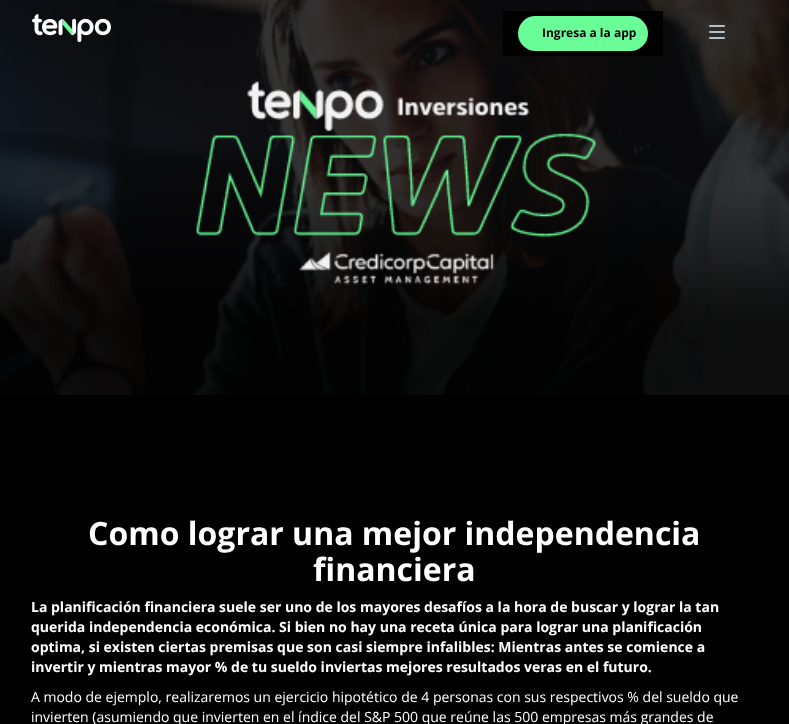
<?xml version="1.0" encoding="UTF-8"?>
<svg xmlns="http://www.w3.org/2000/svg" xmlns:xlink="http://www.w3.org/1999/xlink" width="789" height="724">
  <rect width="100%" height="100%" fill="#000000" />
  <image x="0" y="0" width="789" height="395" xlink:href="image1.png" />
  <image x="32" y="14" width="79" height="28" xlink:href="image2.png" />
  <rect x="503" y="11" width="160" height="45" fill="#000000" />
  <rect x="518" y="16" width="130" height="35" rx="17.5" fill="#6afe99" />
  <rect x="709" y="25" width="16" height="2" rx="1" fill="#b7bfc6" />
  <rect x="709" y="31" width="16" height="2" rx="1" fill="#b7bfc6" />
  <rect x="709" y="37" width="16" height="2" rx="1" fill="#b7bfc6" />
  <text x="542" y="37" style="font-family: Open Sans; font-size: 12px; font-weight: bold; fill: #000000">Ingresa a la app</text>
  <text x="88" y="545" style="font-family: Open Sans; font-size: 32px; font-weight: bold; fill: #ffffff">Como lograr una mejor independencia</text>
  <text x="313" y="581" style="font-family: Open Sans; font-size: 32px; font-weight: bold; fill: #ffffff">financiera</text>
  <text x="31" y="612" style="font-family: Open Sans; font-size: 14px; font-weight: bold; fill: #ffffff">La planificación financiera suele ser uno de los mayores desafíos a la hora de buscar y lograr la tan</text>
  <text x="31" y="632" style="font-family: Open Sans; font-size: 14px; font-weight: bold; fill: #ffffff">querida independencia económica. Si bien no hay una receta única para lograr una planificación</text>
  <text x="31" y="652" style="font-family: Open Sans; font-size: 14px; font-weight: bold; fill: #ffffff">optima, si existen ciertas premisas que son casi siempre infalibles: Mientras antes se comience a</text>
  <text x="31" y="672" style="font-family: Open Sans; font-size: 14px; font-weight: bold; fill: #ffffff">invertir y mientras mayor % de tu sueldo inviertas mejores resultados veras en el futuro.</text>
  <text x="31" y="702" style="font-family: Open Sans; font-size: 14px; fill: #ffffff">A modo de ejemplo, realizaremos un ejercicio hipotético de 4 personas con sus respectivos % del sueldo que</text>
  <text x="31" y="722" style="font-family: Open Sans; font-size: 14px; fill: #ffffff">invierten (asumiendo que invierten en el índice del S&amp;P 500 que reúne las 500 empresas más grandes de</text>
</svg>
